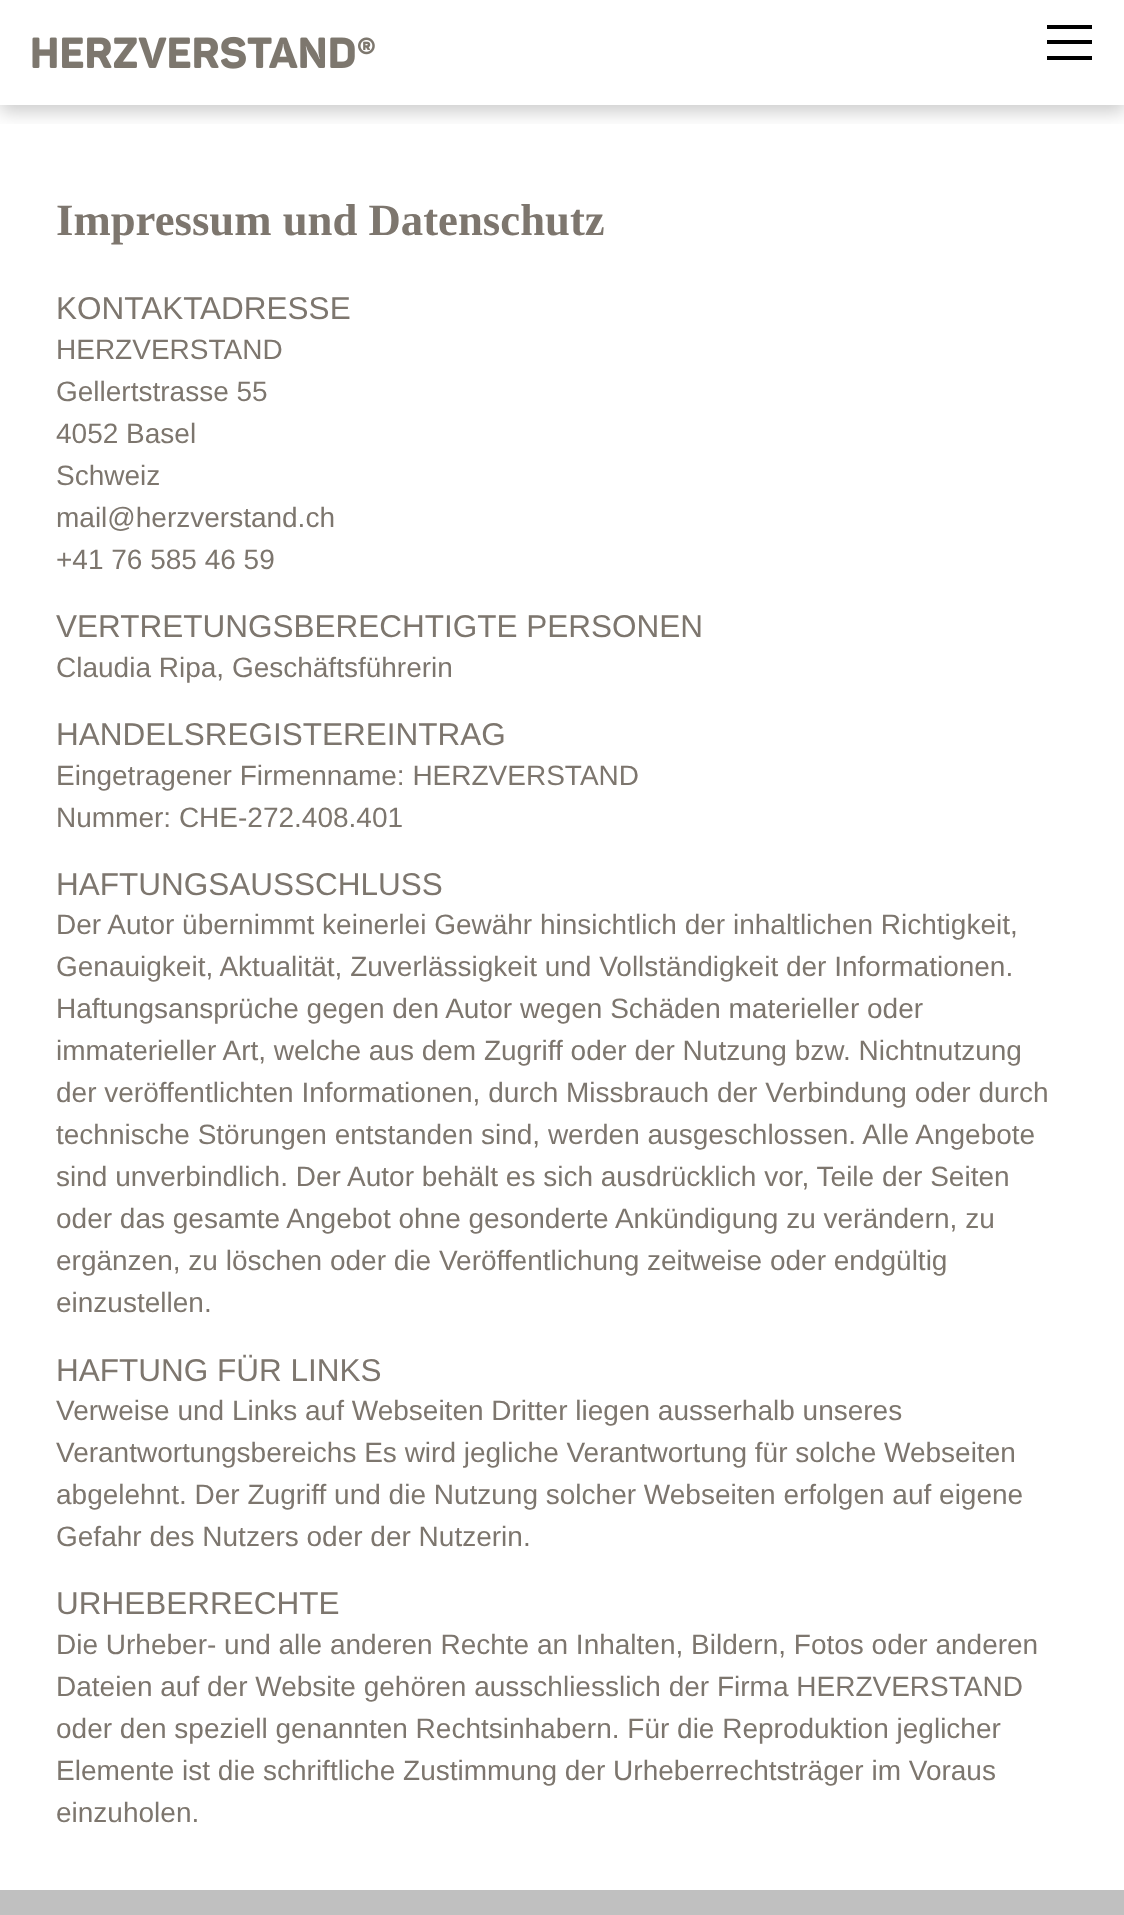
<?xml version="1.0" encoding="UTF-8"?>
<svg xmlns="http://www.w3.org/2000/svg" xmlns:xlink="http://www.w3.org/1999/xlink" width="1124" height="1915">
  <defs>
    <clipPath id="clip1"><rect x="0" y="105" width="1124" height="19" /></clipPath>
  </defs>
  <rect width="100%" height="100%" fill="#c0c0c0" />
  <rect width="1124" height="1890" fill="#ffffff" />
  <g clip-path="url(#clip1)">
    <rect y="7" width="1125" height="105" fill="#000000" fill-opacity="0.2" filter="blur(9px)" />
  </g>
  <image x="32" y="36" width="343" height="33" xlink:href="image1.png" />
  <rect x="1047" y="25" width="45" height="4" fill="#000000" />
  <rect x="1047" y="40" width="45" height="4" fill="#000000" />
  <rect x="1047" y="56" width="45" height="4" fill="#000000" />
  <text x="56" y="235" style="font-family: Liberation Serif; font-size: 44.75px; font-weight: bold; fill: #7d766e">Impressum und Datenschutz</text>
  <text x="56" y="319" style="font-family: Liberation Sans; font-size: 31.5px; fill: #7d766e">KONTAKTADRESSE</text>
  <text x="56" y="359" style="font-family: Liberation Sans; font-size: 28px; fill: #7d766e">HERZVERSTAND</text>
  <text x="56" y="401" style="font-family: Liberation Sans; font-size: 28px; fill: #7d766e">Gellertstrasse 55</text>
  <text x="56" y="443" style="font-family: Liberation Sans; font-size: 28px; fill: #7d766e">4052 Basel</text>
  <text x="56" y="485" style="font-family: Liberation Sans; font-size: 28px; fill: #7d766e">Schweiz</text>
  <text x="56" y="527" style="font-family: Liberation Sans; font-size: 28px; fill: #7d766e">mail@herzverstand.ch</text>
  <text x="56" y="569" style="font-family: Liberation Sans; font-size: 28px; fill: #7d766e">+41 76 585 46 59</text>
  <text x="56" y="637" style="font-family: Liberation Sans; font-size: 31.5px; fill: #7d766e">VERTRETUNGSBERECHTIGTE PERSONEN</text>
  <text x="56" y="677" style="font-family: Liberation Sans; font-size: 28px; fill: #7d766e">Claudia Ripa, Geschäftsführerin</text>
  <text x="56" y="745" style="font-family: Liberation Sans; font-size: 31.5px; fill: #7d766e">HANDELSREGISTEREINTRAG</text>
  <text x="56" y="785" style="font-family: Liberation Sans; font-size: 28px; fill: #7d766e">Eingetragener Firmenname: HERZVERSTAND</text>
  <text x="56" y="827" style="font-family: Liberation Sans; font-size: 28px; fill: #7d766e">Nummer: CHE-272.408.401</text>
  <text x="56" y="895" style="font-family: Liberation Sans; font-size: 31.5px; fill: #7d766e">HAFTUNGSAUSSCHLUSS</text>
  <text x="56" y="934" style="font-family: Liberation Sans; font-size: 28px; fill: #7d766e">Der Autor übernimmt keinerlei Gewähr hinsichtlich der inhaltlichen Richtigkeit,</text>
  <text x="56" y="976" style="font-family: Liberation Sans; font-size: 28px; fill: #7d766e">Genauigkeit, Aktualität, Zuverlässigkeit und Vollständigkeit der Informationen.</text>
  <text x="56" y="1018" style="font-family: Liberation Sans; font-size: 28px; fill: #7d766e">Haftungsansprüche gegen den Autor wegen Schäden materieller oder</text>
  <text x="56" y="1060" style="font-family: Liberation Sans; font-size: 28px; fill: #7d766e">immaterieller Art, welche aus dem Zugriff oder der Nutzung bzw. Nichtnutzung</text>
  <text x="56" y="1102" style="font-family: Liberation Sans; font-size: 28px; fill: #7d766e">der veröffentlichten Informationen, durch Missbrauch der Verbindung oder durch</text>
  <text x="56" y="1144" style="font-family: Liberation Sans; font-size: 28px; fill: #7d766e">technische Störungen entstanden sind, werden ausgeschlossen. Alle Angebote</text>
  <text x="56" y="1186" style="font-family: Liberation Sans; font-size: 28px; fill: #7d766e">sind unverbindlich. Der Autor behält es sich ausdrücklich vor, Teile der Seiten</text>
  <text x="56" y="1228" style="font-family: Liberation Sans; font-size: 28px; fill: #7d766e">oder das gesamte Angebot ohne gesonderte Ankündigung zu verändern, zu</text>
  <text x="56" y="1270" style="font-family: Liberation Sans; font-size: 28px; fill: #7d766e">ergänzen, zu löschen oder die Veröffentlichung zeitweise oder endgültig</text>
  <text x="56" y="1312" style="font-family: Liberation Sans; font-size: 28px; fill: #7d766e">einzustellen.</text>
  <text x="56" y="1381" style="font-family: Liberation Sans; font-size: 31.5px; fill: #7d766e">HAFTUNG FÜR LINKS</text>
  <text x="56" y="1420" style="font-family: Liberation Sans; font-size: 28px; fill: #7d766e">Verweise und Links auf Webseiten Dritter liegen ausserhalb unseres</text>
  <text x="56" y="1462" style="font-family: Liberation Sans; font-size: 28px; fill: #7d766e">Verantwortungsbereichs Es wird jegliche Verantwortung für solche Webseiten</text>
  <text x="56" y="1504" style="font-family: Liberation Sans; font-size: 28px; fill: #7d766e">abgelehnt. Der Zugriff und die Nutzung solcher Webseiten erfolgen auf eigene</text>
  <text x="56" y="1546" style="font-family: Liberation Sans; font-size: 28px; fill: #7d766e">Gefahr des Nutzers oder der Nutzerin.</text>
  <text x="56" y="1614" style="font-family: Liberation Sans; font-size: 31.5px; fill: #7d766e">URHEBERRECHTE</text>
  <text x="56" y="1654" style="font-family: Liberation Sans; font-size: 28px; fill: #7d766e">Die Urheber- und alle anderen Rechte an Inhalten, Bildern, Fotos oder anderen</text>
  <text x="56" y="1696" style="font-family: Liberation Sans; font-size: 28px; fill: #7d766e">Dateien auf der Website gehören ausschliesslich der Firma HERZVERSTAND</text>
  <text x="56" y="1738" style="font-family: Liberation Sans; font-size: 28px; fill: #7d766e">oder den speziell genannten Rechtsinhabern. Für die Reproduktion jeglicher</text>
  <text x="56" y="1780" style="font-family: Liberation Sans; font-size: 28px; fill: #7d766e">Elemente ist die schriftliche Zustimmung der Urheberrechtsträger im Voraus</text>
  <text x="56" y="1822" style="font-family: Liberation Sans; font-size: 28px; fill: #7d766e">einzuholen.</text>
</svg>
